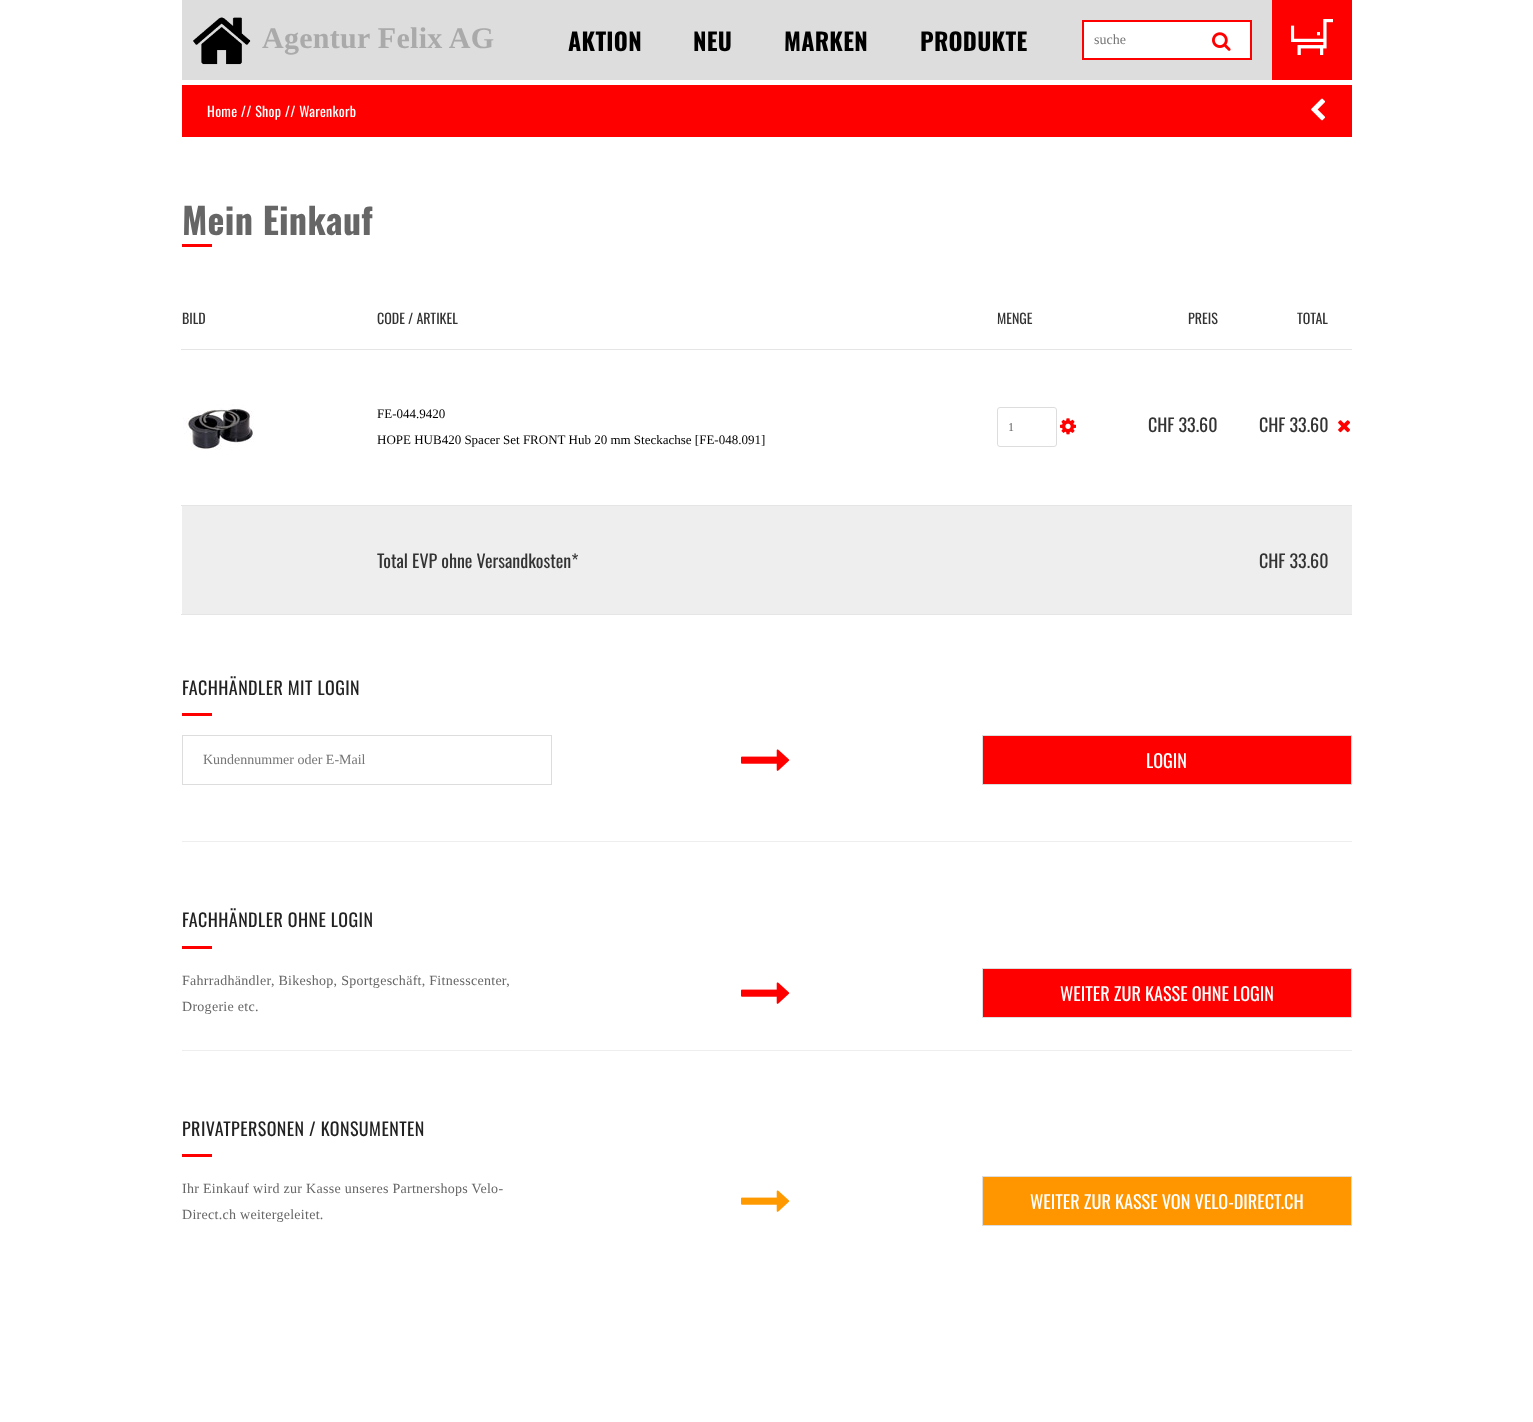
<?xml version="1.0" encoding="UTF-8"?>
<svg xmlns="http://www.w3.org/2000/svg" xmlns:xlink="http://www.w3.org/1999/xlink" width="1533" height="1422">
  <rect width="100%" height="100%" fill="#ffffff" />
  <rect x="182" width="1090" height="80" fill="#dddddd" />
  <image x="193" y="17" width="58" height="48" xlink:href="image1.png" />
  <rect x="1083" y="21" width="168" height="38" fill="#ffffff" stroke="#ff0000" stroke-width="2" />
  <image x="1212" y="32" width="19" height="19" xlink:href="image2.png" />
  <rect x="1272" width="80" height="80" fill="#ff0000" />
  <image x="1291" y="19" width="42" height="36" xlink:href="image3.png" />
  <rect x="182" y="85" width="1170" height="52" fill="#ff0000" />
  <image x="1311" y="98" width="15" height="23" xlink:href="image4.png" />
  <rect x="182" y="244" width="30" height="3" fill="#ff0000" />
  <rect x="181" y="349" width="1171" height="1" fill="#e5e5e5" />
  <image x="183" y="404" width="71" height="46" xlink:href="image5.png" />
  <rect x="181" y="505" width="1171" height="1" fill="#e5e5e5" />
  <image x="1338" y="420" width="12" height="13" xlink:href="image6.png" />
  <rect x="997.5" y="407.5" width="59" height="39" rx="2.5" fill="none" stroke="#dddddd" />
  <image x="1060" y="418" width="16" height="17" xlink:href="image7.png" />
  <rect x="182" y="506" width="1170" height="108" fill="#eeeeee" />
  <rect x="181" y="614" width="1171" height="1" fill="#e5e5e5" />
  <rect x="182" y="713" width="30" height="3" fill="#ff0000" />
  <rect x="182.5" y="735.5" width="369" height="49" fill="none" stroke="#dddddd" />
  <image x="741" y="749" width="49" height="22" xlink:href="image8.png" />
  <rect x="982.5" y="735.5" width="369" height="49" fill="#ff0000" stroke="#dddddd" />
  <rect x="182" y="841" width="1170" height="1" fill="#eeeeee" />
  <rect x="182" y="946" width="30" height="3" fill="#ff0000" />
  <image x="741" y="982" width="49" height="22" xlink:href="image8.png" />
  <rect x="982.5" y="968.5" width="369" height="49" fill="#ff0000" stroke="#dddddd" />
  <rect x="182" y="1050" width="1170" height="1" fill="#eeeeee" />
  <rect x="182" y="1154" width="30" height="3" fill="#ff0000" />
  <image x="741" y="1190" width="49" height="22" xlink:href="image9.png" />
  <rect x="982.5" y="1176.5" width="369" height="49" fill="#ff9600" stroke="#dddddd" />
  <text x="262" y="48" style="font-family: Liberation Serif; font-size: 30px; font-weight: bold; letter-spacing: 0.28px; fill: #aaaaaa">Agentur Felix AG</text>
  <text x="568" y="51" style="font-family: Oswald; font-size: 24px; font-weight: bold; letter-spacing: 0.28px; fill: #000000">AKTION</text>
  <text x="693" y="51" style="font-family: Oswald; font-size: 24px; font-weight: bold; letter-spacing: 0.28px; fill: #000000">NEU</text>
  <text x="784" y="51" style="font-family: Oswald; font-size: 24px; font-weight: bold; letter-spacing: 0.28px; fill: #000000">MARKEN</text>
  <text x="920" y="51" style="font-family: Oswald; font-size: 24px; font-weight: bold; letter-spacing: 0.28px; fill: #000000">PRODUKTE</text>
  <text x="1094" y="44" style="font-family: Liberation Serif; font-size: 14px; fill: #757575">suche</text>
  <text x="207" y="117" style="font-family: Oswald; font-size: 14px; letter-spacing: 0.28px; fill: #ffffff">Home // Shop // Warenkorb</text>
  <text x="182" y="235" style="font-family: Oswald; font-size: 36px; font-weight: bold; letter-spacing: 0.28px; fill: #666666">Mein Einkauf</text>
  <text x="182" y="324" style="font-family: Oswald; font-size: 14px; fill: #333333">BILD</text>
  <text x="377" y="324" style="font-family: Oswald; font-size: 14px; fill: #333333">CODE / ARTIKEL</text>
  <text x="997" y="324" style="font-family: Oswald; font-size: 14px; fill: #333333">MENGE</text>
  <text x="1188" y="324" style="font-family: Oswald; font-size: 14px; fill: #333333">PREIS</text>
  <text x="1297" y="324" style="font-family: Oswald; font-size: 14px; fill: #333333">TOTAL</text>
  <text x="377" y="418" style="font-family: Liberation Serif; font-size: 13px; fill: #000000">FE-044.9420</text>
  <text x="377" y="444" style="font-family: Liberation Serif; font-size: 13px; fill: #000000">HOPE HUB420 Spacer Set FRONT Hub 20 mm Steckachse [FE-048.091]</text>
  <text x="1148" y="432" style="font-family: Oswald; font-size: 18px; fill: #333333">CHF 33.60</text>
  <text x="1259" y="432" style="font-family: Oswald; font-size: 18px; fill: #333333">CHF 33.60</text>
  <text x="1008" y="431" style="font-family: Liberation Serif; font-size: 12px; fill: #666666">1</text>
  <text x="377" y="568" style="font-family: Oswald; font-size: 18px; fill: #333333">Total EVP ohne Versandkosten*</text>
  <text x="1259" y="568" style="font-family: Oswald; font-size: 18px; fill: #333333">CHF 33.60</text>
  <text x="182" y="695" style="font-family: Oswald; font-size: 18px; letter-spacing: 0.45px; fill: #222222">FACHHÄNDLER MIT LOGIN</text>
  <text x="203" y="764" style="font-family: Liberation Serif; font-size: 14px; fill: #757575">Kundennummer oder E-Mail</text>
  <text x="1146" y="768" style="font-family: Oswald; font-size: 18.25px; fill: #ffffff">LOGIN</text>
  <text x="182" y="927" style="font-family: Oswald; font-size: 18px; letter-spacing: 0.45px; fill: #222222">FACHHÄNDLER OHNE LOGIN</text>
  <text x="182" y="985" style="font-family: Liberation Serif; font-size: 14px; letter-spacing: 0.28px; fill: #666666">Fahrradhändler, Bikeshop, Sportgeschäft, Fitnesscenter,</text>
  <text x="182" y="1011" style="font-family: Liberation Serif; font-size: 14px; letter-spacing: 0.28px; fill: #666666">Drogerie etc.</text>
  <text x="1060" y="1001" style="font-family: Oswald; font-size: 18.25px; fill: #ffffff">WEITER ZUR KASSE OHNE LOGIN</text>
  <text x="182" y="1136" style="font-family: Oswald; font-size: 18px; letter-spacing: 0.45px; fill: #222222">PRIVATPERSONEN / KONSUMENTEN</text>
  <text x="182" y="1193" style="font-family: Liberation Serif; font-size: 14px; letter-spacing: 0.28px; fill: #666666">Ihr Einkauf wird zur Kasse unseres Partnershops Velo-</text>
  <text x="182" y="1219" style="font-family: Liberation Serif; font-size: 14px; letter-spacing: 0.28px; fill: #666666">Direct.ch weitergeleitet.</text>
  <text x="1030" y="1209" style="font-family: Oswald; font-size: 18.25px; fill: #ffffff">WEITER ZUR KASSE VON VELO-DIRECT.CH</text>
</svg>
